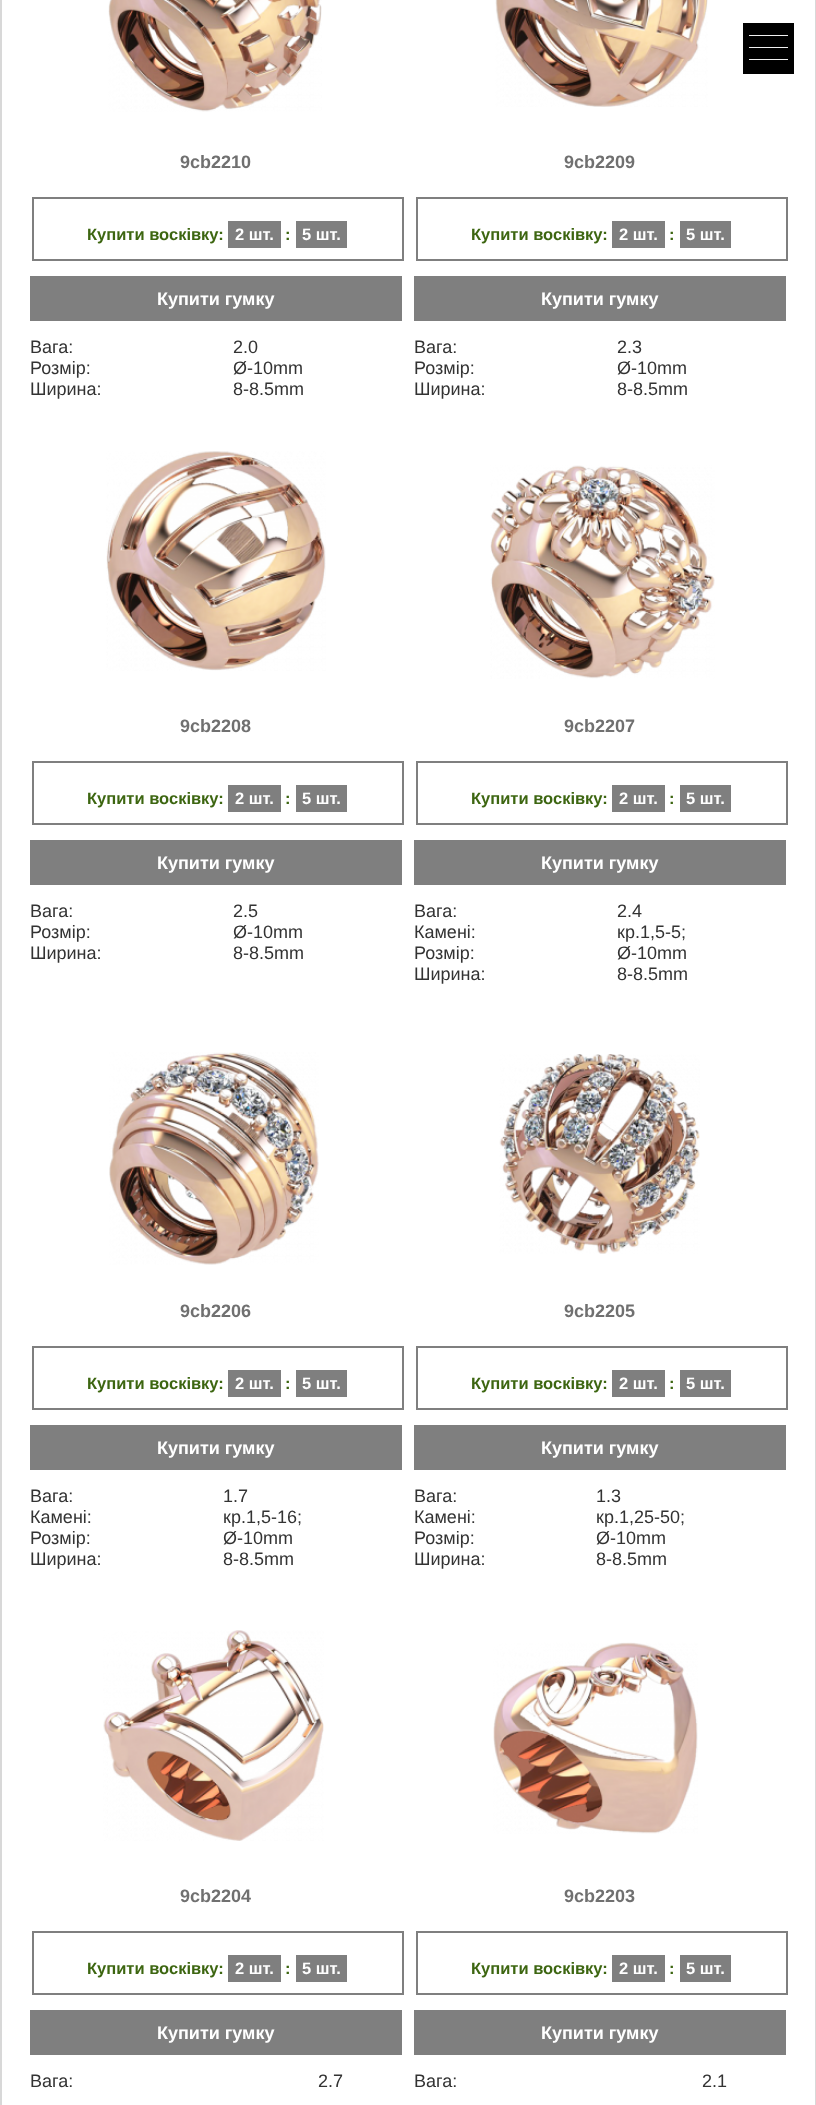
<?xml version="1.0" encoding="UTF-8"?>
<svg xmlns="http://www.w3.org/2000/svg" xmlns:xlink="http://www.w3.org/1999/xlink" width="816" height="2105">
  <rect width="100%" height="100%" fill="#ffffff" />
  <rect x="815" width="1" height="2105" fill="#d8d8d8" />
  <rect width="2" height="2105" fill="#d8d8d8" />
  <rect x="743" y="23" width="51" height="51" fill="#000000" />
  <rect x="749" y="47" width="39" height="1" fill="#f1f1f1" />
  <rect x="749" y="35" width="39" height="1" fill="#f1f1f1" />
  <rect x="749" y="59" width="39" height="1" fill="#f1f1f1" />
  <image x="108" y="0" width="214" height="112" xlink:href="image1.png" />
  <rect x="33" y="198" width="370" height="62" fill="none" stroke="#7f7f7f" stroke-width="2" />
  <rect x="228" y="221" width="53" height="27" fill="#7f7f7f" />
  <rect x="296" y="221" width="51" height="27" fill="#7f7f7f" />
  <rect x="30" y="276" width="372" height="45" fill="#7f7f7f" />
  <image x="495" y="0" width="213" height="107" xlink:href="image2.png" />
  <rect x="417" y="198" width="370" height="62" fill="none" stroke="#7f7f7f" stroke-width="2" />
  <rect x="612" y="221" width="53" height="27" fill="#7f7f7f" />
  <rect x="680" y="221" width="51" height="27" fill="#7f7f7f" />
  <rect x="414" y="276" width="372" height="45" fill="#7f7f7f" />
  <image x="106" y="451" width="220" height="220" xlink:href="image3.png" />
  <rect x="33" y="762" width="370" height="62" fill="none" stroke="#7f7f7f" stroke-width="2" />
  <rect x="228" y="785" width="53" height="27" fill="#7f7f7f" />
  <rect x="296" y="785" width="51" height="27" fill="#7f7f7f" />
  <rect x="30" y="840" width="372" height="45" fill="#7f7f7f" />
  <image x="490" y="465" width="225" height="214" xlink:href="image4.png" />
  <rect x="417" y="762" width="370" height="62" fill="none" stroke="#7f7f7f" stroke-width="2" />
  <rect x="612" y="785" width="53" height="27" fill="#7f7f7f" />
  <rect x="680" y="785" width="51" height="27" fill="#7f7f7f" />
  <rect x="414" y="840" width="372" height="45" fill="#7f7f7f" />
  <image x="109" y="1052" width="210" height="213" xlink:href="image5.png" />
  <rect x="33" y="1347" width="370" height="62" fill="none" stroke="#7f7f7f" stroke-width="2" />
  <rect x="228" y="1370" width="53" height="27" fill="#7f7f7f" />
  <rect x="296" y="1370" width="51" height="27" fill="#7f7f7f" />
  <rect x="30" y="1425" width="372" height="45" fill="#7f7f7f" />
  <image x="499" y="1054" width="201" height="200" xlink:href="image6.png" />
  <rect x="417" y="1347" width="370" height="62" fill="none" stroke="#7f7f7f" stroke-width="2" />
  <rect x="612" y="1370" width="53" height="27" fill="#7f7f7f" />
  <rect x="680" y="1370" width="51" height="27" fill="#7f7f7f" />
  <rect x="414" y="1425" width="372" height="45" fill="#7f7f7f" />
  <image x="103" y="1630" width="221" height="211" xlink:href="image7.png" />
  <rect x="33" y="1932" width="370" height="62" fill="none" stroke="#7f7f7f" stroke-width="2" />
  <rect x="228" y="1955" width="53" height="27" fill="#7f7f7f" />
  <rect x="296" y="1955" width="51" height="27" fill="#7f7f7f" />
  <rect x="30" y="2010" width="372" height="45" fill="#7f7f7f" />
  <image x="493" y="1642" width="205" height="192" xlink:href="image8.png" />
  <rect x="417" y="1932" width="370" height="62" fill="none" stroke="#7f7f7f" stroke-width="2" />
  <rect x="612" y="1955" width="53" height="27" fill="#7f7f7f" />
  <rect x="680" y="1955" width="51" height="27" fill="#7f7f7f" />
  <rect x="414" y="2010" width="372" height="45" fill="#7f7f7f" />
  <text x="180" y="168" style="font-family: Liberation Sans; font-size: 18px; font-weight: bold; fill: #707070">9cb2210</text>
  <text x="87" y="240" style="font-family: Liberation Sans; font-size: 16.5px; font-weight: bold; fill: #3d6611">Купити восківку:</text>
  <text x="235" y="240" style="font-family: Liberation Sans; font-size: 16.5px; font-weight: bold; fill: #ffffff">2 шт.</text>
  <text x="285" y="240" style="font-family: Liberation Sans; font-size: 16.5px; font-weight: bold; fill: #3d6611">:</text>
  <text x="302" y="240" style="font-family: Liberation Sans; font-size: 16.5px; font-weight: bold; fill: #ffffff">5 шт.</text>
  <text x="157" y="305" style="font-family: Liberation Sans; font-size: 18px; font-weight: bold; fill: #ffffff">Купити гумку</text>
  <text x="30" y="353" style="font-family: Liberation Sans; font-size: 18px; fill: #333333">Вага:</text>
  <text x="233" y="353" style="font-family: Liberation Sans; font-size: 18px; fill: #333333">2.0</text>
  <text x="30" y="374" style="font-family: Liberation Sans; font-size: 18px; fill: #333333">Розмір:</text>
  <text x="233" y="374" style="font-family: Liberation Sans; font-size: 18px; fill: #333333">Ø-10mm</text>
  <text x="30" y="395" style="font-family: Liberation Sans; font-size: 18px; fill: #333333">Ширина:</text>
  <text x="233" y="395" style="font-family: Liberation Sans; font-size: 18px; fill: #333333">8-8.5mm</text>
  <text x="564" y="168" style="font-family: Liberation Sans; font-size: 18px; font-weight: bold; fill: #707070">9cb2209</text>
  <text x="471" y="240" style="font-family: Liberation Sans; font-size: 16.5px; font-weight: bold; fill: #3d6611">Купити восківку:</text>
  <text x="619" y="240" style="font-family: Liberation Sans; font-size: 16.5px; font-weight: bold; fill: #ffffff">2 шт.</text>
  <text x="669" y="240" style="font-family: Liberation Sans; font-size: 16.5px; font-weight: bold; fill: #3d6611">:</text>
  <text x="686" y="240" style="font-family: Liberation Sans; font-size: 16.5px; font-weight: bold; fill: #ffffff">5 шт.</text>
  <text x="541" y="305" style="font-family: Liberation Sans; font-size: 18px; font-weight: bold; fill: #ffffff">Купити гумку</text>
  <text x="414" y="353" style="font-family: Liberation Sans; font-size: 18px; fill: #333333">Вага:</text>
  <text x="617" y="353" style="font-family: Liberation Sans; font-size: 18px; fill: #333333">2.3</text>
  <text x="414" y="374" style="font-family: Liberation Sans; font-size: 18px; fill: #333333">Розмір:</text>
  <text x="617" y="374" style="font-family: Liberation Sans; font-size: 18px; fill: #333333">Ø-10mm</text>
  <text x="414" y="395" style="font-family: Liberation Sans; font-size: 18px; fill: #333333">Ширина:</text>
  <text x="617" y="395" style="font-family: Liberation Sans; font-size: 18px; fill: #333333">8-8.5mm</text>
  <text x="180" y="732" style="font-family: Liberation Sans; font-size: 18px; font-weight: bold; fill: #707070">9cb2208</text>
  <text x="87" y="804" style="font-family: Liberation Sans; font-size: 16.5px; font-weight: bold; fill: #3d6611">Купити восківку:</text>
  <text x="235" y="804" style="font-family: Liberation Sans; font-size: 16.5px; font-weight: bold; fill: #ffffff">2 шт.</text>
  <text x="285" y="804" style="font-family: Liberation Sans; font-size: 16.5px; font-weight: bold; fill: #3d6611">:</text>
  <text x="302" y="804" style="font-family: Liberation Sans; font-size: 16.5px; font-weight: bold; fill: #ffffff">5 шт.</text>
  <text x="157" y="869" style="font-family: Liberation Sans; font-size: 18px; font-weight: bold; fill: #ffffff">Купити гумку</text>
  <text x="30" y="917" style="font-family: Liberation Sans; font-size: 18px; fill: #333333">Вага:</text>
  <text x="233" y="917" style="font-family: Liberation Sans; font-size: 18px; fill: #333333">2.5</text>
  <text x="30" y="938" style="font-family: Liberation Sans; font-size: 18px; fill: #333333">Розмір:</text>
  <text x="233" y="938" style="font-family: Liberation Sans; font-size: 18px; fill: #333333">Ø-10mm</text>
  <text x="30" y="959" style="font-family: Liberation Sans; font-size: 18px; fill: #333333">Ширина:</text>
  <text x="233" y="959" style="font-family: Liberation Sans; font-size: 18px; fill: #333333">8-8.5mm</text>
  <text x="564" y="732" style="font-family: Liberation Sans; font-size: 18px; font-weight: bold; fill: #707070">9cb2207</text>
  <text x="471" y="804" style="font-family: Liberation Sans; font-size: 16.5px; font-weight: bold; fill: #3d6611">Купити восківку:</text>
  <text x="619" y="804" style="font-family: Liberation Sans; font-size: 16.5px; font-weight: bold; fill: #ffffff">2 шт.</text>
  <text x="669" y="804" style="font-family: Liberation Sans; font-size: 16.5px; font-weight: bold; fill: #3d6611">:</text>
  <text x="686" y="804" style="font-family: Liberation Sans; font-size: 16.5px; font-weight: bold; fill: #ffffff">5 шт.</text>
  <text x="541" y="869" style="font-family: Liberation Sans; font-size: 18px; font-weight: bold; fill: #ffffff">Купити гумку</text>
  <text x="414" y="917" style="font-family: Liberation Sans; font-size: 18px; fill: #333333">Вага:</text>
  <text x="617" y="917" style="font-family: Liberation Sans; font-size: 18px; fill: #333333">2.4</text>
  <text x="414" y="938" style="font-family: Liberation Sans; font-size: 18px; fill: #333333">Камені:</text>
  <text x="617" y="938" style="font-family: Liberation Sans; font-size: 18px; fill: #333333">кр.1,5-5;</text>
  <text x="414" y="959" style="font-family: Liberation Sans; font-size: 18px; fill: #333333">Розмір:</text>
  <text x="617" y="959" style="font-family: Liberation Sans; font-size: 18px; fill: #333333">Ø-10mm</text>
  <text x="414" y="980" style="font-family: Liberation Sans; font-size: 18px; fill: #333333">Ширина:</text>
  <text x="617" y="980" style="font-family: Liberation Sans; font-size: 18px; fill: #333333">8-8.5mm</text>
  <text x="180" y="1317" style="font-family: Liberation Sans; font-size: 18px; font-weight: bold; fill: #707070">9cb2206</text>
  <text x="87" y="1389" style="font-family: Liberation Sans; font-size: 16.5px; font-weight: bold; fill: #3d6611">Купити восківку:</text>
  <text x="235" y="1389" style="font-family: Liberation Sans; font-size: 16.5px; font-weight: bold; fill: #ffffff">2 шт.</text>
  <text x="285" y="1389" style="font-family: Liberation Sans; font-size: 16.5px; font-weight: bold; fill: #3d6611">:</text>
  <text x="302" y="1389" style="font-family: Liberation Sans; font-size: 16.5px; font-weight: bold; fill: #ffffff">5 шт.</text>
  <text x="157" y="1454" style="font-family: Liberation Sans; font-size: 18px; font-weight: bold; fill: #ffffff">Купити гумку</text>
  <text x="30" y="1502" style="font-family: Liberation Sans; font-size: 18px; fill: #333333">Вага:</text>
  <text x="223" y="1502" style="font-family: Liberation Sans; font-size: 18px; fill: #333333">1.7</text>
  <text x="30" y="1523" style="font-family: Liberation Sans; font-size: 18px; fill: #333333">Камені:</text>
  <text x="223" y="1523" style="font-family: Liberation Sans; font-size: 18px; fill: #333333">кр.1,5-16;</text>
  <text x="30" y="1544" style="font-family: Liberation Sans; font-size: 18px; fill: #333333">Розмір:</text>
  <text x="223" y="1544" style="font-family: Liberation Sans; font-size: 18px; fill: #333333">Ø-10mm</text>
  <text x="30" y="1565" style="font-family: Liberation Sans; font-size: 18px; fill: #333333">Ширина:</text>
  <text x="223" y="1565" style="font-family: Liberation Sans; font-size: 18px; fill: #333333">8-8.5mm</text>
  <text x="564" y="1317" style="font-family: Liberation Sans; font-size: 18px; font-weight: bold; fill: #707070">9cb2205</text>
  <text x="471" y="1389" style="font-family: Liberation Sans; font-size: 16.5px; font-weight: bold; fill: #3d6611">Купити восківку:</text>
  <text x="619" y="1389" style="font-family: Liberation Sans; font-size: 16.5px; font-weight: bold; fill: #ffffff">2 шт.</text>
  <text x="669" y="1389" style="font-family: Liberation Sans; font-size: 16.5px; font-weight: bold; fill: #3d6611">:</text>
  <text x="686" y="1389" style="font-family: Liberation Sans; font-size: 16.5px; font-weight: bold; fill: #ffffff">5 шт.</text>
  <text x="541" y="1454" style="font-family: Liberation Sans; font-size: 18px; font-weight: bold; fill: #ffffff">Купити гумку</text>
  <text x="414" y="1502" style="font-family: Liberation Sans; font-size: 18px; fill: #333333">Вага:</text>
  <text x="596" y="1502" style="font-family: Liberation Sans; font-size: 18px; fill: #333333">1.3</text>
  <text x="414" y="1523" style="font-family: Liberation Sans; font-size: 18px; fill: #333333">Камені:</text>
  <text x="596" y="1523" style="font-family: Liberation Sans; font-size: 18px; fill: #333333">кр.1,25-50;</text>
  <text x="414" y="1544" style="font-family: Liberation Sans; font-size: 18px; fill: #333333">Розмір:</text>
  <text x="596" y="1544" style="font-family: Liberation Sans; font-size: 18px; fill: #333333">Ø-10mm</text>
  <text x="414" y="1565" style="font-family: Liberation Sans; font-size: 18px; fill: #333333">Ширина:</text>
  <text x="596" y="1565" style="font-family: Liberation Sans; font-size: 18px; fill: #333333">8-8.5mm</text>
  <text x="180" y="1902" style="font-family: Liberation Sans; font-size: 18px; font-weight: bold; fill: #707070">9cb2204</text>
  <text x="87" y="1974" style="font-family: Liberation Sans; font-size: 16.5px; font-weight: bold; fill: #3d6611">Купити восківку:</text>
  <text x="235" y="1974" style="font-family: Liberation Sans; font-size: 16.5px; font-weight: bold; fill: #ffffff">2 шт.</text>
  <text x="285" y="1974" style="font-family: Liberation Sans; font-size: 16.5px; font-weight: bold; fill: #3d6611">:</text>
  <text x="302" y="1974" style="font-family: Liberation Sans; font-size: 16.5px; font-weight: bold; fill: #ffffff">5 шт.</text>
  <text x="157" y="2039" style="font-family: Liberation Sans; font-size: 18px; font-weight: bold; fill: #ffffff">Купити гумку</text>
  <text x="30" y="2087" style="font-family: Liberation Sans; font-size: 18px; fill: #333333">Вага:</text>
  <text x="318" y="2087" style="font-family: Liberation Sans; font-size: 18px; fill: #333333">2.7</text>
  <text x="564" y="1902" style="font-family: Liberation Sans; font-size: 18px; font-weight: bold; fill: #707070">9cb2203</text>
  <text x="471" y="1974" style="font-family: Liberation Sans; font-size: 16.5px; font-weight: bold; fill: #3d6611">Купити восківку:</text>
  <text x="619" y="1974" style="font-family: Liberation Sans; font-size: 16.5px; font-weight: bold; fill: #ffffff">2 шт.</text>
  <text x="669" y="1974" style="font-family: Liberation Sans; font-size: 16.5px; font-weight: bold; fill: #3d6611">:</text>
  <text x="686" y="1974" style="font-family: Liberation Sans; font-size: 16.5px; font-weight: bold; fill: #ffffff">5 шт.</text>
  <text x="541" y="2039" style="font-family: Liberation Sans; font-size: 18px; font-weight: bold; fill: #ffffff">Купити гумку</text>
  <text x="414" y="2087" style="font-family: Liberation Sans; font-size: 18px; fill: #333333">Вага:</text>
  <text x="702" y="2087" style="font-family: Liberation Sans; font-size: 18px; fill: #333333">2.1</text>
</svg>
